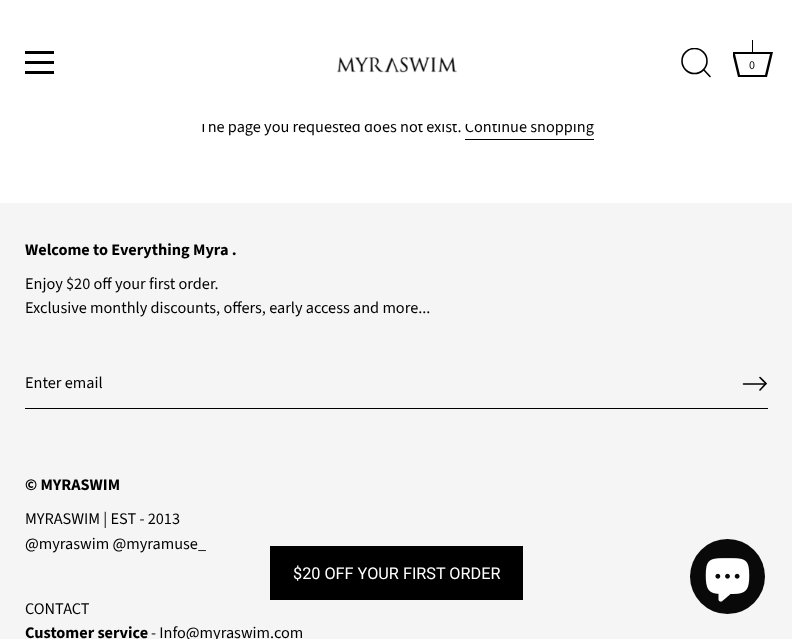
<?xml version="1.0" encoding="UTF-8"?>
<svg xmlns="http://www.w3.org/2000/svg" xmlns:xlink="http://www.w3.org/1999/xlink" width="792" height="639">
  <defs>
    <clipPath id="clip1"><rect x="681" y="48" width="30" height="30" /></clipPath>
    <clipPath id="clip2"><rect x="733" y="39" width="40" height="40" /></clipPath>
  </defs>
  <rect width="100%" height="100%" fill="#ffffff" />
  <rect x="25" y="51" width="29" height="3" fill="#000000" />
  <rect x="25" y="61" width="29" height="3" fill="#000000" />
  <rect x="25" y="71" width="29" height="3" fill="#000000" />
  <image x="337" y="57" width="120" height="16" xlink:href="image1.png" />
  <g clip-path="url(#clip1)">
    <circle cx="694.5" cy="61" r="12.5" fill="none" stroke="#000000" stroke-width="1.6" />
  </g>
  <path d="M 710 76.5 l -6.5 -7" fill="none" stroke="#000000" stroke-width="1.6" stroke-linecap="round" stroke-linejoin="round" />
  <rect x="752" y="40" width="1" height="12" fill="#000000" />
  <g clip-path="url(#clip2)">
    <path d="M 770 54 l -5 21 h -25 l -5 -21 h 35 m 3 -2 h -41 l 6 25 h 29 z" fill="#000000" />
  </g>
  <rect x="465" y="139" width="129" height="1" fill="#000000" />
  <rect y="203" width="792" height="436" fill="#f5f5f5" />
  <rect x="25" y="408" width="743" height="1" fill="#000000" />
  <path d="M 760 390 l 6 -6.5 l -6 -6" fill="none" stroke="#000000" stroke-width="1.6" stroke-linecap="round" />
  <path d="M 765.5 384 h -22" fill="none" stroke="#000000" stroke-width="1.6" stroke-linecap="round" stroke-linejoin="round" />
  <circle cx="727.5" cy="576.5" r="37.5" fill="#0a0909" />
  <image x="705" y="558" width="45" height="44" xlink:href="image2.png" />
  <rect x="270" y="546" width="253" height="54" fill="#000000" />
  <text x="749" y="69" style="font-family: Source Sans Pro; font-size: 12px; fill: #000000">0</text>
  <text x="199" y="132" style="font-family: Source Sans Pro; font-size: 16.25px; fill: #000000">The page you requested does not exist. Continue shopping</text>
  <rect x="199" y="120" width="391" height="4" fill="#ffffff" />
  <text x="25" y="255" style="font-family: Source Sans Pro; font-size: 16.25px; font-weight: bold; fill: #000000">Welcome to Everything Myra .</text>
  <text x="25" y="289" style="font-family: Source Sans Pro; font-size: 16.25px; fill: #000000">Enjoy $20 off your first order.</text>
  <text x="25" y="313" style="font-family: Source Sans Pro; font-size: 16.25px; fill: #000000">Exclusive monthly discounts, offers, early access and more...</text>
  <text x="25" y="388" style="font-family: Source Sans Pro; font-size: 16.25px; fill: #000000">Enter email</text>
  <text x="25" y="490" style="font-family: Source Sans Pro; font-size: 16.25px; font-weight: bold; fill: #000000">© MYRASWIM</text>
  <text x="25" y="524" style="font-family: Source Sans Pro; font-size: 16.25px; fill: #000000">MYRASWIM | EST - 2013</text>
  <text x="25" y="549" style="font-family: Source Sans Pro; font-size: 16.25px; fill: #000000">@myraswim @myramuse_</text>
  <text x="25" y="614" style="font-family: Source Sans Pro; font-size: 16.25px; fill: #000000">CONTACT</text>
  <text x="25" y="638" style="font-family: Source Sans Pro; font-size: 16.25px; font-weight: bold; fill: #000000">Customer service</text>
  <text x="151" y="638" style="font-family: Source Sans Pro; font-size: 16.25px; fill: #000000">- Info@myraswim.com</text>
  <text x="293" y="579" style="font-family: Roboto; font-size: 16.25px; fill: #ffffff">$20 OFF YOUR FIRST ORDER</text>
</svg>
